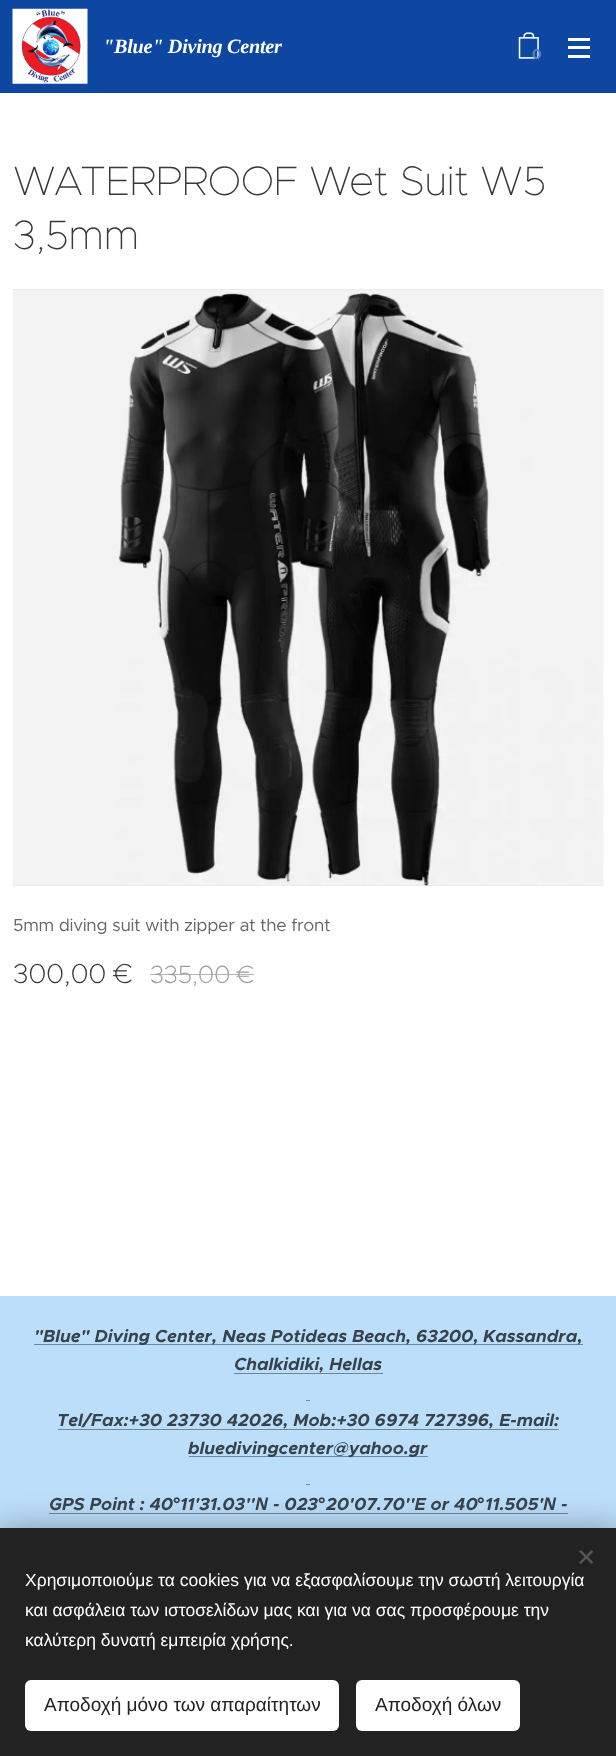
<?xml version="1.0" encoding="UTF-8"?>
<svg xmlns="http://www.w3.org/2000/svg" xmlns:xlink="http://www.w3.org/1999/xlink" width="616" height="1756">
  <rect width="100%" height="100%" fill="#ffffff" />
  <rect width="616" height="93" fill="#0d47a1" />
  <image x="12" y="8" width="76" height="76" xlink:href="image1.png" />
  <image x="518" y="32" width="21" height="27" xlink:href="image2.png" />
  <rect x="568" y="46" width="22" height="3" fill="#ffffff" />
  <rect x="568" y="38" width="22" height="3" fill="#ffffff" />
  <rect x="568" y="55" width="22" height="3" fill="#ffffff" />
  <image x="12" y="289" width="592" height="597" xlink:href="image3.png" />
  <rect y="1296" width="616" height="232" fill="#bbdefb" />
  <rect x="34" y="1344" width="549" height="1" fill="#708597" />
  <rect x="234" y="1373" width="149" height="1" fill="#708597" />
  <rect x="306" y="1400" width="4" height="1" fill="#708597" />
  <rect x="58" y="1429" width="501" height="1" fill="#708597" />
  <rect x="189" y="1456" width="239" height="1" fill="#708597" />
  <rect x="306" y="1484" width="4" height="1" fill="#708597" />
  <rect x="49" y="1513" width="519" height="1" fill="#708597" />
  <rect y="1528" width="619" height="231" fill="#000000" fill-opacity="0.33" filter="blur(15.5px)" />
  <rect y="1528" width="616" height="228" fill="#222222" />
  <path d="M 579 1562.5 l 12.5 -12.5 l 2 1.5 l -12.5 12.5 z" fill="#555555" />
  <path d="M 581 1550 l 12.5 12.5 l -2 1.5 l -12.5 -12.5 z" fill="#555555" />
  <rect x="25" y="1680" width="314" height="51" rx="6" fill="#ffffff" />
  <rect x="356" y="1680" width="164" height="51" rx="6" fill="#ffffff" />
  <text x="103" y="53" style="font-family: Tinos; font-size: 20.25px; font-weight: bold; font-style: italic; letter-spacing: -0.3px; fill: #ffffff">"Blue" Diving Center</text>
  <text x="532" y="59" style="font-family: Montserrat; font-size: 14px; font-weight: bold; fill: #567fbd">0</text>
  <text x="13" y="195" style="font-family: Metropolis; font-size: 41.25px; font-weight: 100; letter-spacing: -0.3px; fill: #393939">WATERPROOF Wet Suit W5</text>
  <text x="13" y="249" style="font-family: Metropolis; font-size: 41.25px; font-weight: 100; letter-spacing: -0.3px; fill: #393939">3,5mm</text>
  <text x="13" y="931" style="font-family: Metropolis; font-size: 17.5px; letter-spacing: -0.3px; fill: #666666">5mm diving suit with zipper at the front</text>
  <text x="13" y="983" style="font-family: Metropolis; font-size: 27.5px; font-weight: 200; letter-spacing: -0.3px; fill: #393939">300,00 €</text>
  <text x="150" y="983" style="font-family: Metropolis; font-size: 25px; font-weight: 200; letter-spacing: -0.3px; fill: #9d9d9d">335,00 €</text>
  <rect x="150" y="974" width="104" height="1" fill="#9d9d9d" fill-opacity="0.75" />
  <text x="34" y="1342" style="font-family: Metropolis; font-size: 17.5px; font-weight: bold; font-style: italic; fill: #38424b">"Blue" Diving Center, Neas Potideas Beach, 63200,</text>
  <text x="483" y="1342" style="font-family: Metropolis; font-size: 17.5px; font-weight: bold; font-style: italic; fill: #38424b">Kassandra,</text>
  <text x="234" y="1370" style="font-family: Metropolis; font-size: 17.5px; font-weight: bold; font-style: italic; fill: #38424b">Chalkidiki, Hellas</text>
  <text x="57" y="1426" style="font-family: Metropolis; font-size: 17.5px; font-weight: bold; font-style: italic; fill: #38424b">Tel/Fax:+30 23730 42026, Mob:+30 6974 727396, E-mail:</text>
  <text x="188" y="1454" style="font-family: Metropolis; font-size: 17.5px; font-weight: bold; font-style: italic; fill: #38424b">bluedivingcenter@yahoo.gr</text>
  <text x="49" y="1510" style="font-family: Metropolis; font-size: 17.5px; font-weight: bold; font-style: italic; fill: #38424b">GPS Point : 40</text>
  <text x="173" y="1510" style="font-family: Noto Sans; font-size: 17.5px; font-weight: bold; font-style: italic; fill: #38424b">°</text>
  <text x="180" y="1510" style="font-family: Metropolis; font-size: 17.5px; font-weight: bold; font-style: italic; fill: #38424b">11'31.03''</text>
  <text x="255" y="1510" style="font-family: Noto Sans; font-size: 17.5px; font-weight: bold; font-style: italic; fill: #38424b">Ν</text>
  <text x="273" y="1510" style="font-family: Metropolis; font-size: 17.5px; font-weight: bold; font-style: italic; fill: #38424b">- 023</text>
  <text x="318" y="1510" style="font-family: Noto Sans; font-size: 17.5px; font-weight: bold; font-style: italic; fill: #38424b">°</text>
  <text x="326" y="1510" style="font-family: Metropolis; font-size: 17.5px; font-weight: bold; font-style: italic; fill: #38424b">20'07.70''E or 40</text>
  <text x="477" y="1510" style="font-family: Noto Sans; font-size: 17.5px; font-weight: bold; font-style: italic; fill: #38424b">°</text>
  <text x="485" y="1510" style="font-family: Metropolis; font-size: 17.5px; font-weight: bold; font-style: italic; fill: #38424b">11.505'</text>
  <text x="543" y="1510" style="font-family: Noto Sans; font-size: 17.5px; font-weight: bold; font-style: italic; fill: #38424b">Ν</text>
  <text x="561" y="1510" style="font-family: Metropolis; font-size: 17.5px; font-weight: bold; font-style: italic; fill: #38424b">-</text>
  <text x="25" y="1586" style="font-family: Liberation Sans; font-size: 17.5px; fill: #ffffff">Χρησιμοποιούμε τα cookies για να εξασφαλίσουμε την σωστή λειτουργία</text>
  <text x="25" y="1616" style="font-family: Liberation Sans; font-size: 17.5px; fill: #ffffff">και ασφάλεια των ιστοσελίδων μας και για να σας προσφέρουμε την</text>
  <text x="25" y="1646" style="font-family: Liberation Sans; font-size: 17.5px; fill: #ffffff">καλύτερη δυνατή εμπειρία χρήσης.</text>
  <text x="44" y="1711" style="font-family: Liberation Sans; font-size: 19px; fill: #222222">Αποδοχή μόνο των απαραίτητων</text>
  <text x="375" y="1711" style="font-family: Liberation Sans; font-size: 19px; fill: #222222">Αποδοχή όλων</text>
</svg>
